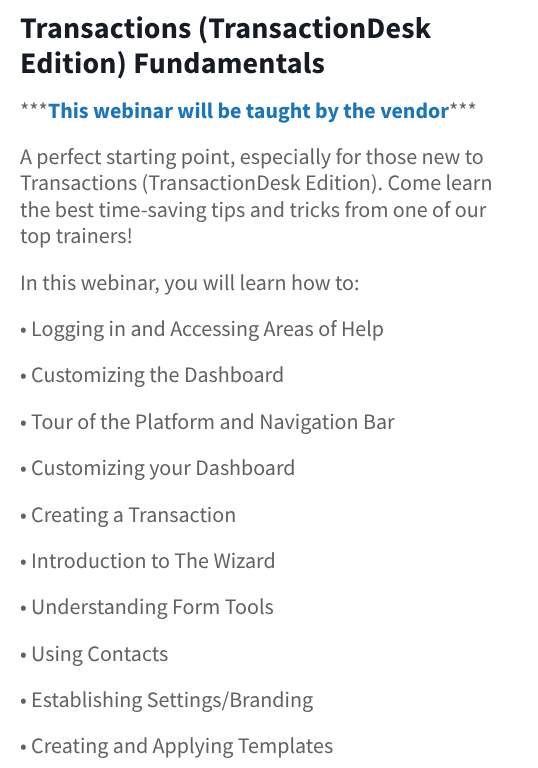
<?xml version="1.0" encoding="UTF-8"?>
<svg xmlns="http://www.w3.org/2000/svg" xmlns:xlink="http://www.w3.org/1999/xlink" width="538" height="768">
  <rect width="100%" height="100%" fill="#ffffff" />
  <text x="20" y="38" style="font-family: Source Sans Pro; font-size: 30px; font-weight: bold; letter-spacing: 0.2px; fill: #171c24">Transactions (TransactionDesk</text>
  <text x="20" y="73" style="font-family: Source Sans Pro; font-size: 30px; font-weight: bold; letter-spacing: 0.2px; fill: #171c24">Edition) Fundamentals</text>
  <text x="20" y="118" style="font-family: Source Sans Pro; font-size: 22px; fill: #626262">***</text>
  <text x="48" y="118" style="font-family: Source Sans Pro; font-size: 22px; font-weight: bold; fill: #1b75bb">This webinar will be taught by the vendor</text>
  <text x="449" y="118" style="font-family: Source Sans Pro; font-size: 22px; fill: #626262">***</text>
  <text x="20" y="164" style="font-family: Source Sans Pro; font-size: 22px; fill: #626262">A perfect starting point, especially for those new to</text>
  <text x="20" y="190" style="font-family: Source Sans Pro; font-size: 22px; fill: #626262">Transactions (TransactionDesk Edition). Come learn</text>
  <text x="20" y="217" style="font-family: Source Sans Pro; font-size: 22px; fill: #626262">the best time-saving tips and tricks from one of our</text>
  <text x="20" y="243" style="font-family: Source Sans Pro; font-size: 22px; fill: #626262">top trainers!</text>
  <text x="20" y="290" style="font-family: Source Sans Pro; font-size: 22px; fill: #626262">In this webinar, you will learn how to:</text>
  <text x="20" y="336" style="font-family: Source Sans Pro; font-size: 22px; fill: #626262">• Logging in and Accessing Areas of Help</text>
  <text x="20" y="382" style="font-family: Source Sans Pro; font-size: 22px; fill: #626262">• Customizing the Dashboard</text>
  <text x="20" y="429" style="font-family: Source Sans Pro; font-size: 22px; fill: #626262">• Tour of the Platform and Navigation Bar</text>
  <text x="20" y="475" style="font-family: Source Sans Pro; font-size: 22px; fill: #626262">• Customizing your Dashboard</text>
  <text x="20" y="522" style="font-family: Source Sans Pro; font-size: 22px; fill: #626262">• Creating a Transaction</text>
  <text x="20" y="568" style="font-family: Source Sans Pro; font-size: 22px; fill: #626262">• Introduction to The Wizard</text>
  <text x="20" y="614" style="font-family: Source Sans Pro; font-size: 22px; fill: #626262">• Understanding Form Tools</text>
  <text x="20" y="661" style="font-family: Source Sans Pro; font-size: 22px; fill: #626262">• Using Contacts</text>
  <text x="20" y="707" style="font-family: Source Sans Pro; font-size: 22px; fill: #626262">• Establishing Settings/Branding</text>
  <text x="20" y="753" style="font-family: Source Sans Pro; font-size: 22px; fill: #626262">• Creating and Applying Templates</text>
</svg>
